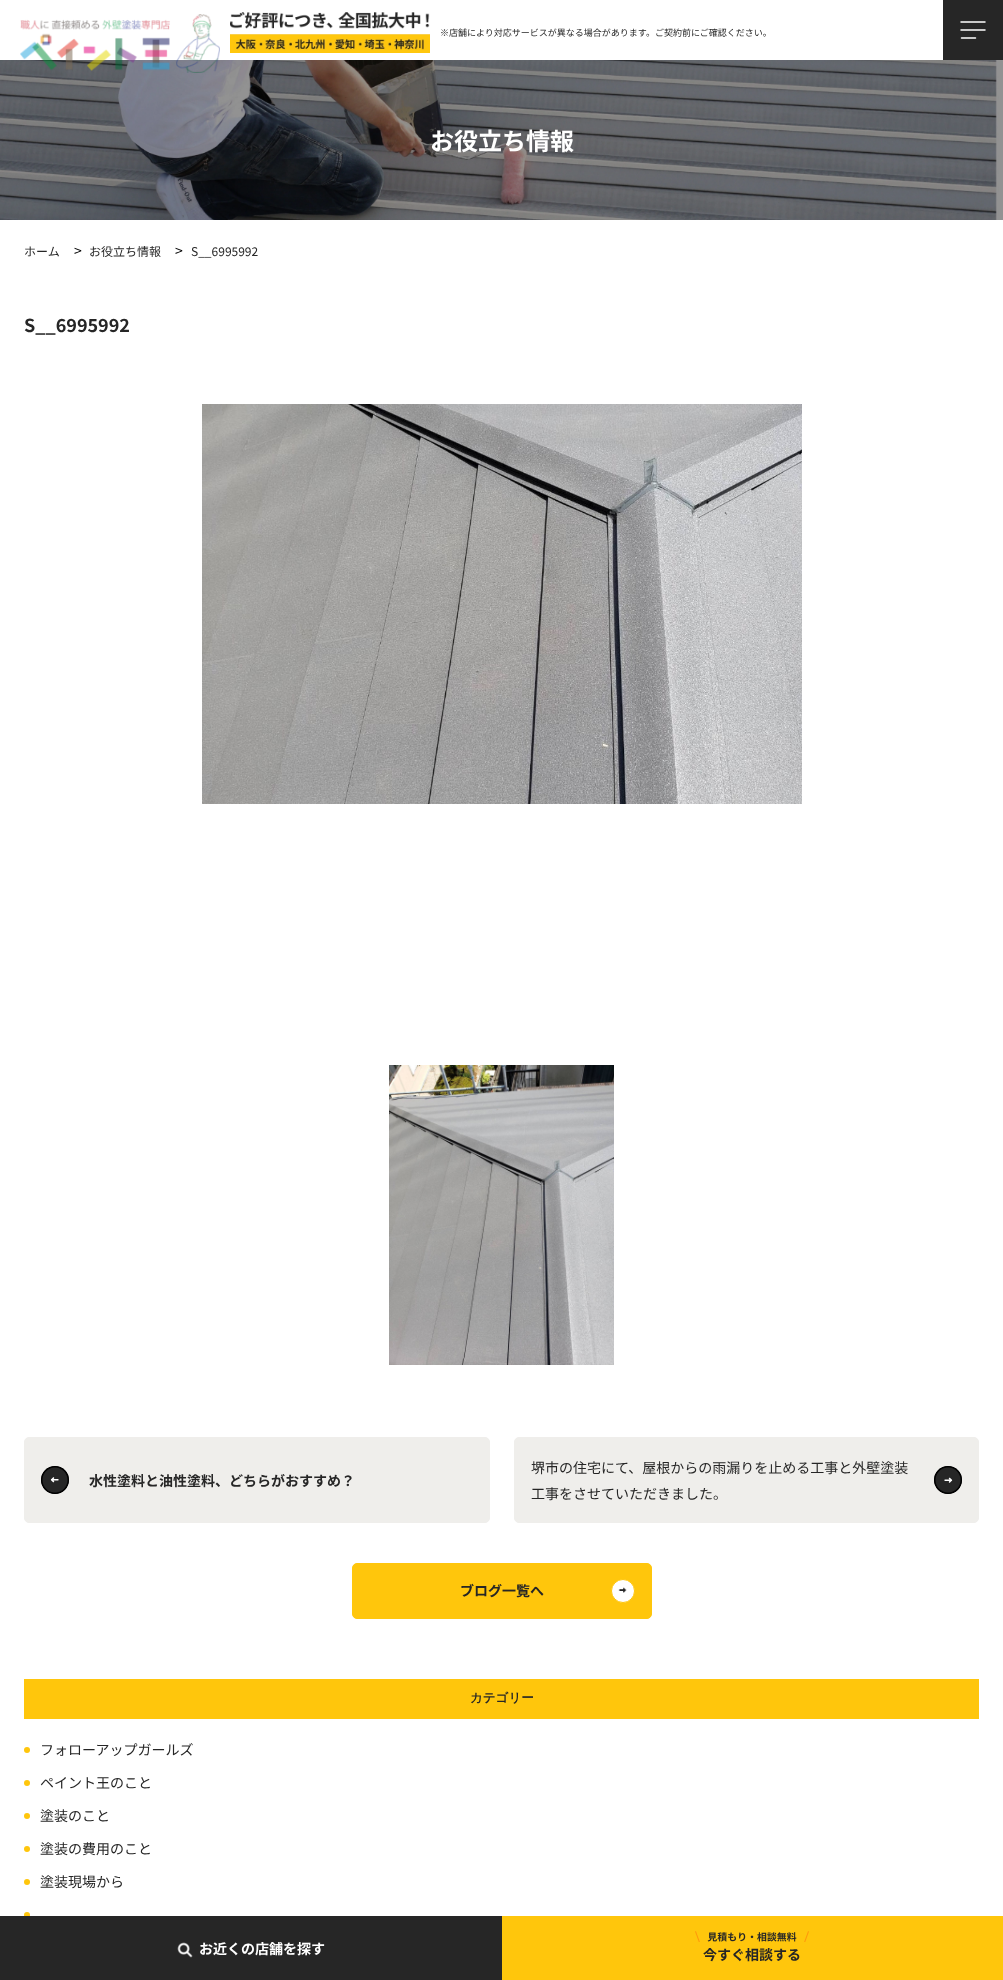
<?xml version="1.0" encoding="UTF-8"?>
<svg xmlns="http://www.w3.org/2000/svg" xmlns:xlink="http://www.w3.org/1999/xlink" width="1003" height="1980">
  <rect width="100%" height="100%" fill="#ffffff" />
  <image x="0" y="60" width="1003" height="160" xlink:href="image3.png" />
  <image x="20" y="14" width="200" height="59" xlink:href="image1.png" />
  <image x="230" y="12" width="200" height="41" xlink:href="image2.png" />
  <rect x="943" width="60" height="60" fill="#262626" />
  <path d="M 961 22 h 24 m -24 8 h 24 m -23.5 8 h 14" fill="none" stroke="#ffffff" stroke-width="1.5" stroke-linecap="round" stroke-linejoin="round" />
  <image x="202" y="404" width="600" height="400" xlink:href="image4.png" />
  <image x="389" y="1065" width="225" height="300" xlink:href="image5.png" />
  <rect x="24.5" y="1437.5" width="465" height="85" rx="4.5" fill="#efeeeb" stroke="#efeeeb" />
  <circle cx="55" cy="1480" r="14" fill="#000000" />
  <image x="41" y="1466" width="28" height="28" xlink:href="image6.png" />
  <rect x="514.5" y="1437.5" width="464" height="85" rx="4.5" fill="#efeeeb" stroke="#efeeeb" />
  <circle cx="948" cy="1480" r="14" fill="#000000" />
  <image x="934" y="1466" width="28" height="28" xlink:href="image7.png" />
  <rect x="352.5" y="1563.5" width="299" height="55" rx="4.5" fill="#ffc60c" stroke="#ffc60c" />
  <circle cx="623" cy="1591" r="11.5" fill="#ffffff" stroke="#ffc60c" />
  <image x="618" y="1587" width="9" height="6" xlink:href="image8.png" />
  <rect x="24" y="1679" width="955" height="40" fill="#ffc60c" />
  <circle cx="27" cy="1750" r="3" fill="#ffc60c" />
  <circle cx="27" cy="1783" r="3" fill="#ffc60c" />
  <circle cx="27" cy="1816" r="3" fill="#ffc60c" />
  <circle cx="27" cy="1849" r="3" fill="#ffc60c" />
  <circle cx="27" cy="1882" r="3" fill="#ffc60c" />
  <circle cx="27" cy="1915" r="3" fill="#ffc60c" />
  <rect y="1916" width="502" height="64" fill="#262626" />
  <image x="177" y="1942" width="16" height="16" xlink:href="image9.png" />
  <rect x="502" y="1916" width="501" height="64" fill="#ffc60c" />
  <image x="695" y="1931" width="114" height="11" xlink:href="image10.png" />
  <text x="440" y="36" style="font-family: Noto Sans JP; font-size: 9px; fill: #262626">※店舗により対応サービスが異なる場合があります。ご契約前にご確認ください。</text>
  <text x="430" y="150" style="font-family: Noto Sans JP; font-size: 24px; font-weight: bold; fill: #ffffff">お役立ち情報</text>
  <text x="24" y="256" style="font-family: Noto Sans JP; font-size: 12px; fill: #262626">ホーム</text>
  <text x="74" y="256" style="font-family: Noto Sans JP; font-size: 14px; fill: #000000">&gt;</text>
  <text x="89" y="256" style="font-family: Noto Sans JP; font-size: 12px; fill: #262626">お役立ち情報</text>
  <text x="175" y="256" style="font-family: Noto Sans JP; font-size: 14px; fill: #000000">&gt;</text>
  <text x="191" y="256" style="font-family: Noto Sans JP; font-size: 12px; fill: #262626">S__6995992</text>
  <text x="24" y="332" style="font-family: Noto Sans JP; font-size: 18px; font-weight: bold; fill: #262626">S__6995992</text>
  <text x="89" y="1486" style="font-family: Noto Sans JP; font-size: 14px; font-weight: bold; fill: #262626">水性塗料と油性塗料、どちらがおすすめ？</text>
  <text x="531" y="1473" style="font-family: Noto Sans JP; font-size: 14px; fill: #262626">堺市の住宅にて、屋根からの雨漏りを止める工事と外壁塗装</text>
  <text x="531" y="1499" style="font-family: Noto Sans JP; font-size: 14px; fill: #262626">工事をさせていただきました。</text>
  <text x="460" y="1596" style="font-family: Noto Sans JP; font-size: 14px; font-weight: bold; fill: #262626">ブログ一覧へ</text>
  <text x="470" y="1702" style="font-family: WenQuanYi Zen Hei; font-size: 12.5px; font-weight: bold; fill: #262626">カテゴリー</text>
  <text x="40" y="1755" style="font-family: Noto Sans JP; font-size: 14px; fill: #262626">フォローアップガールズ</text>
  <text x="40" y="1788" style="font-family: Noto Sans JP; font-size: 14px; fill: #262626">ペイント王のこと</text>
  <text x="40" y="1821" style="font-family: Noto Sans JP; font-size: 14px; fill: #262626">塗装のこと</text>
  <text x="40" y="1854" style="font-family: Noto Sans JP; font-size: 14px; fill: #262626">塗装の費用のこと</text>
  <text x="40" y="1887" style="font-family: Noto Sans JP; font-size: 14px; fill: #262626">塗装現場から</text>
  <text x="199" y="1954" style="font-family: Noto Sans JP; font-size: 14px; font-weight: bold; fill: #ffffff">お近くの店舗を探す</text>
  <text x="703" y="1960" style="font-family: Noto Sans JP; font-size: 14px; font-weight: bold; fill: #262626">今すぐ相談する</text>
</svg>
